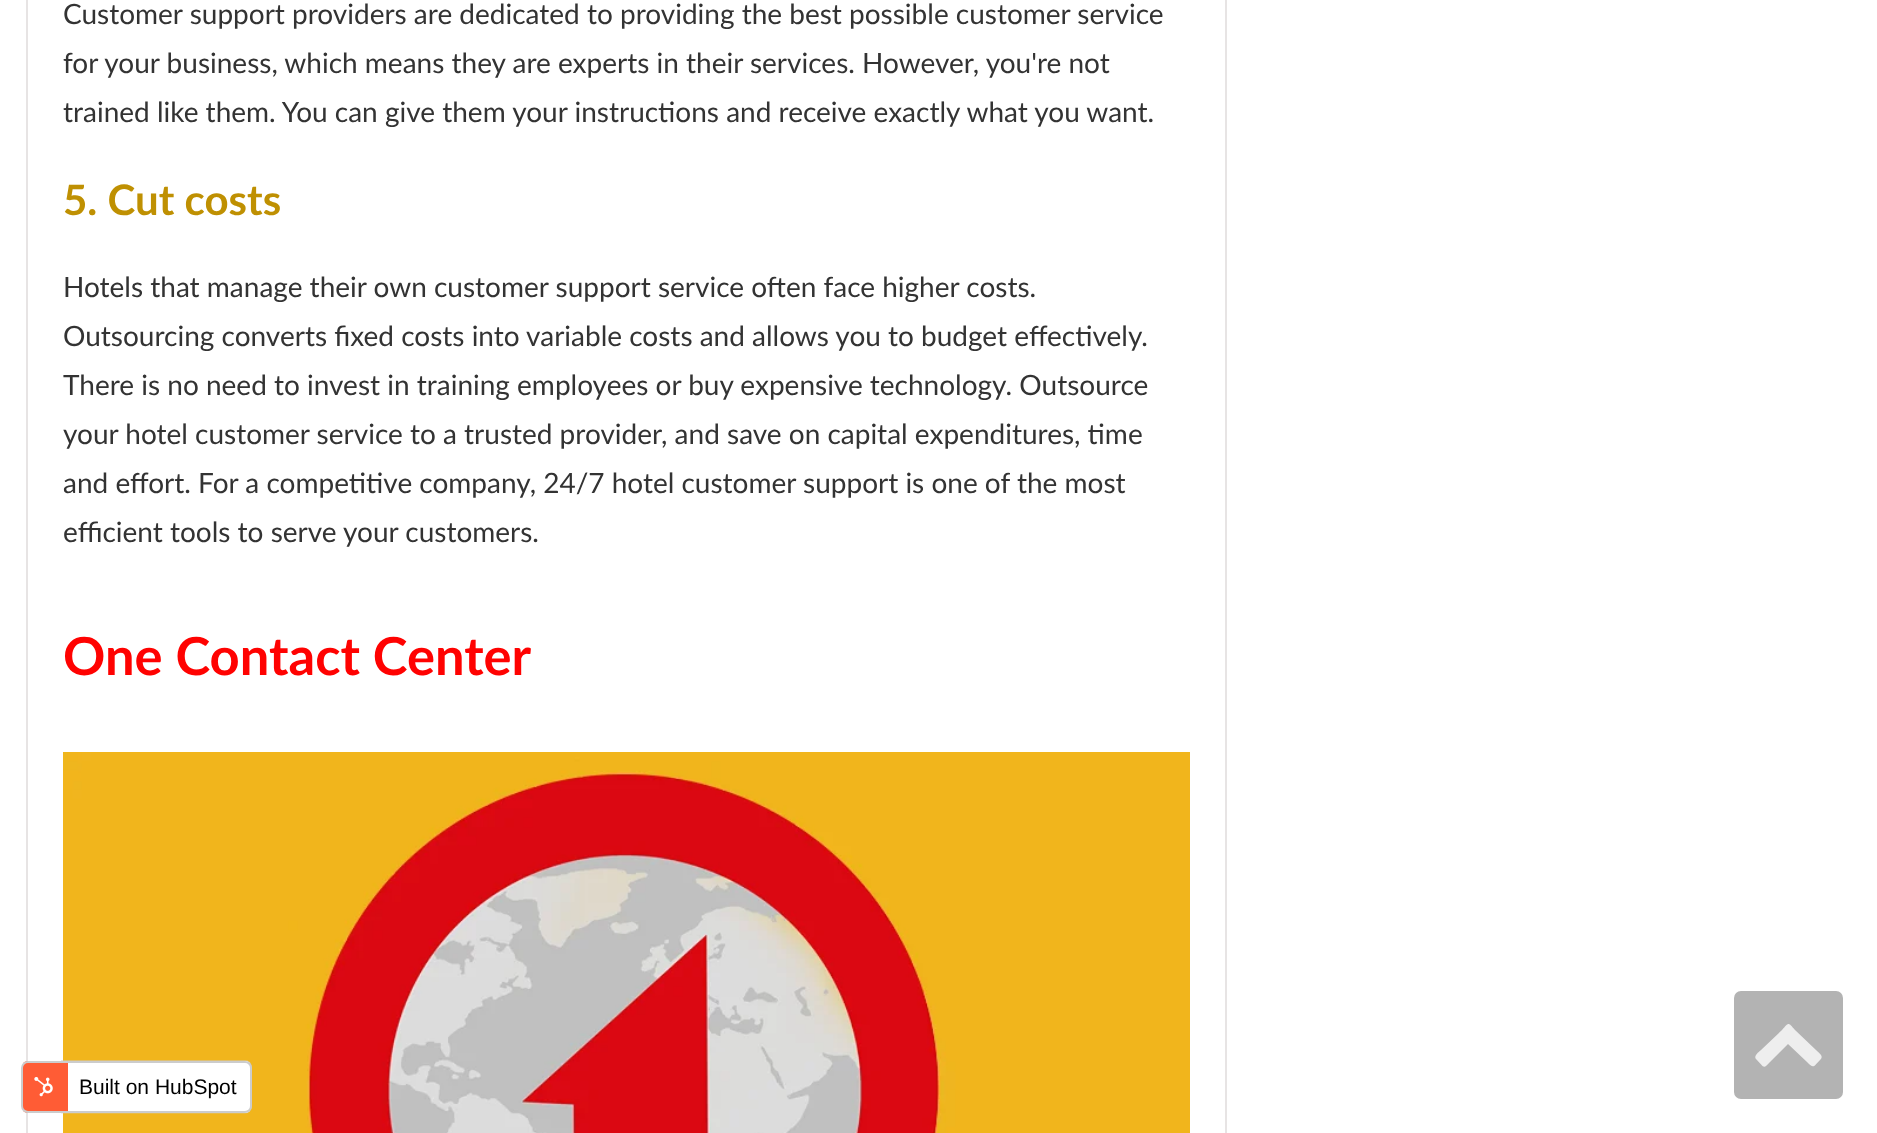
<?xml version="1.0" encoding="UTF-8"?>
<svg xmlns="http://www.w3.org/2000/svg" xmlns:xlink="http://www.w3.org/1999/xlink" width="1877" height="1133">
  <defs>
    <clipPath id="clip1"><rect x="21" y="1061" width="231" height="52" rx="7" /></clipPath>
  </defs>
  <rect width="100%" height="100%" fill="#ffffff" />
  <rect x="27" y="-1" width="1199" height="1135" fill="none" stroke="#e7e4e4" stroke-width="2" />
  <image x="61" y="752" width="1129" height="381" xlink:href="image1.png" />
  <g clip-path="url(#clip1)">
    <rect x="23" y="1061" width="45" height="52" fill="#ff5c35" />
    <rect x="68" y="1061" width="182" height="52" fill="#ffffff" />
  </g>
  <rect x="22" y="1062" width="229" height="50" rx="6" fill="none" stroke="#cccccc" stroke-width="2" />
  <image x="34" y="1077" width="19" height="20" xlink:href="image2.png" />
  <rect x="1734" y="991" width="109" height="108" rx="7" fill="#b3b3b3" />
  <path d="M 1756 1059 c -3 -3 4 -8 5 -9 l 21 -20 c 7 -8 6 -8 13 0 l 21 20 c 4 4 8 6 4 10 c -7 7 -6 9 -13 2 l -19 -18 l -18 18 c -7 8 -6 5 -14 -3 z" fill="#eeeeee" />
  <text x="63" y="24" style="font-family: Lato; font-size: 28px; fill: #333333">Customer support providers are dedicated to providing the best possible customer service</text>
  <text x="63" y="73" style="font-family: Lato; font-size: 28px; fill: #333333">for your business, which means they are experts in their services. However, you're not</text>
  <text x="63" y="122" style="font-family: Lato; font-size: 28px; fill: #333333">trained like them. You can give them your instructions and receive exactly what you want.</text>
  <text x="63" y="215" style="font-family: Lato; font-size: 42px; font-weight: bold; fill: #bf9002">5. Cut costs</text>
  <text x="63" y="297" style="font-family: Lato; font-size: 28px; fill: #333333">Hotels that manage their own customer support service often face higher costs.</text>
  <text x="63" y="346" style="font-family: Lato; font-size: 28px; fill: #333333">Outsourcing converts fixed costs into variable costs and allows you to budget effectively.</text>
  <text x="63" y="395" style="font-family: Lato; font-size: 28px; fill: #333333">There is no need to invest in training employees or buy expensive technology. Outsource</text>
  <text x="63" y="444" style="font-family: Lato; font-size: 28px; fill: #333333">your hotel customer service to a trusted provider, and save on capital expenditures, time</text>
  <text x="63" y="493" style="font-family: Lato; font-size: 28px; fill: #333333">and effort. For a competitive company, 24/7 hotel customer support is one of the most</text>
  <text x="63" y="542" style="font-family: Lato; font-size: 28px; fill: #333333">efficient tools to serve your customers.</text>
  <text x="63" y="675" style="font-family: Lato; font-size: 52.5px; font-weight: bold; fill: #ff0201">One Contact Center</text>
  <text x="79" y="1094" style="font-family: Liberation Sans; font-size: 21px; fill: #000000">Built on HubSpot</text>
</svg>
